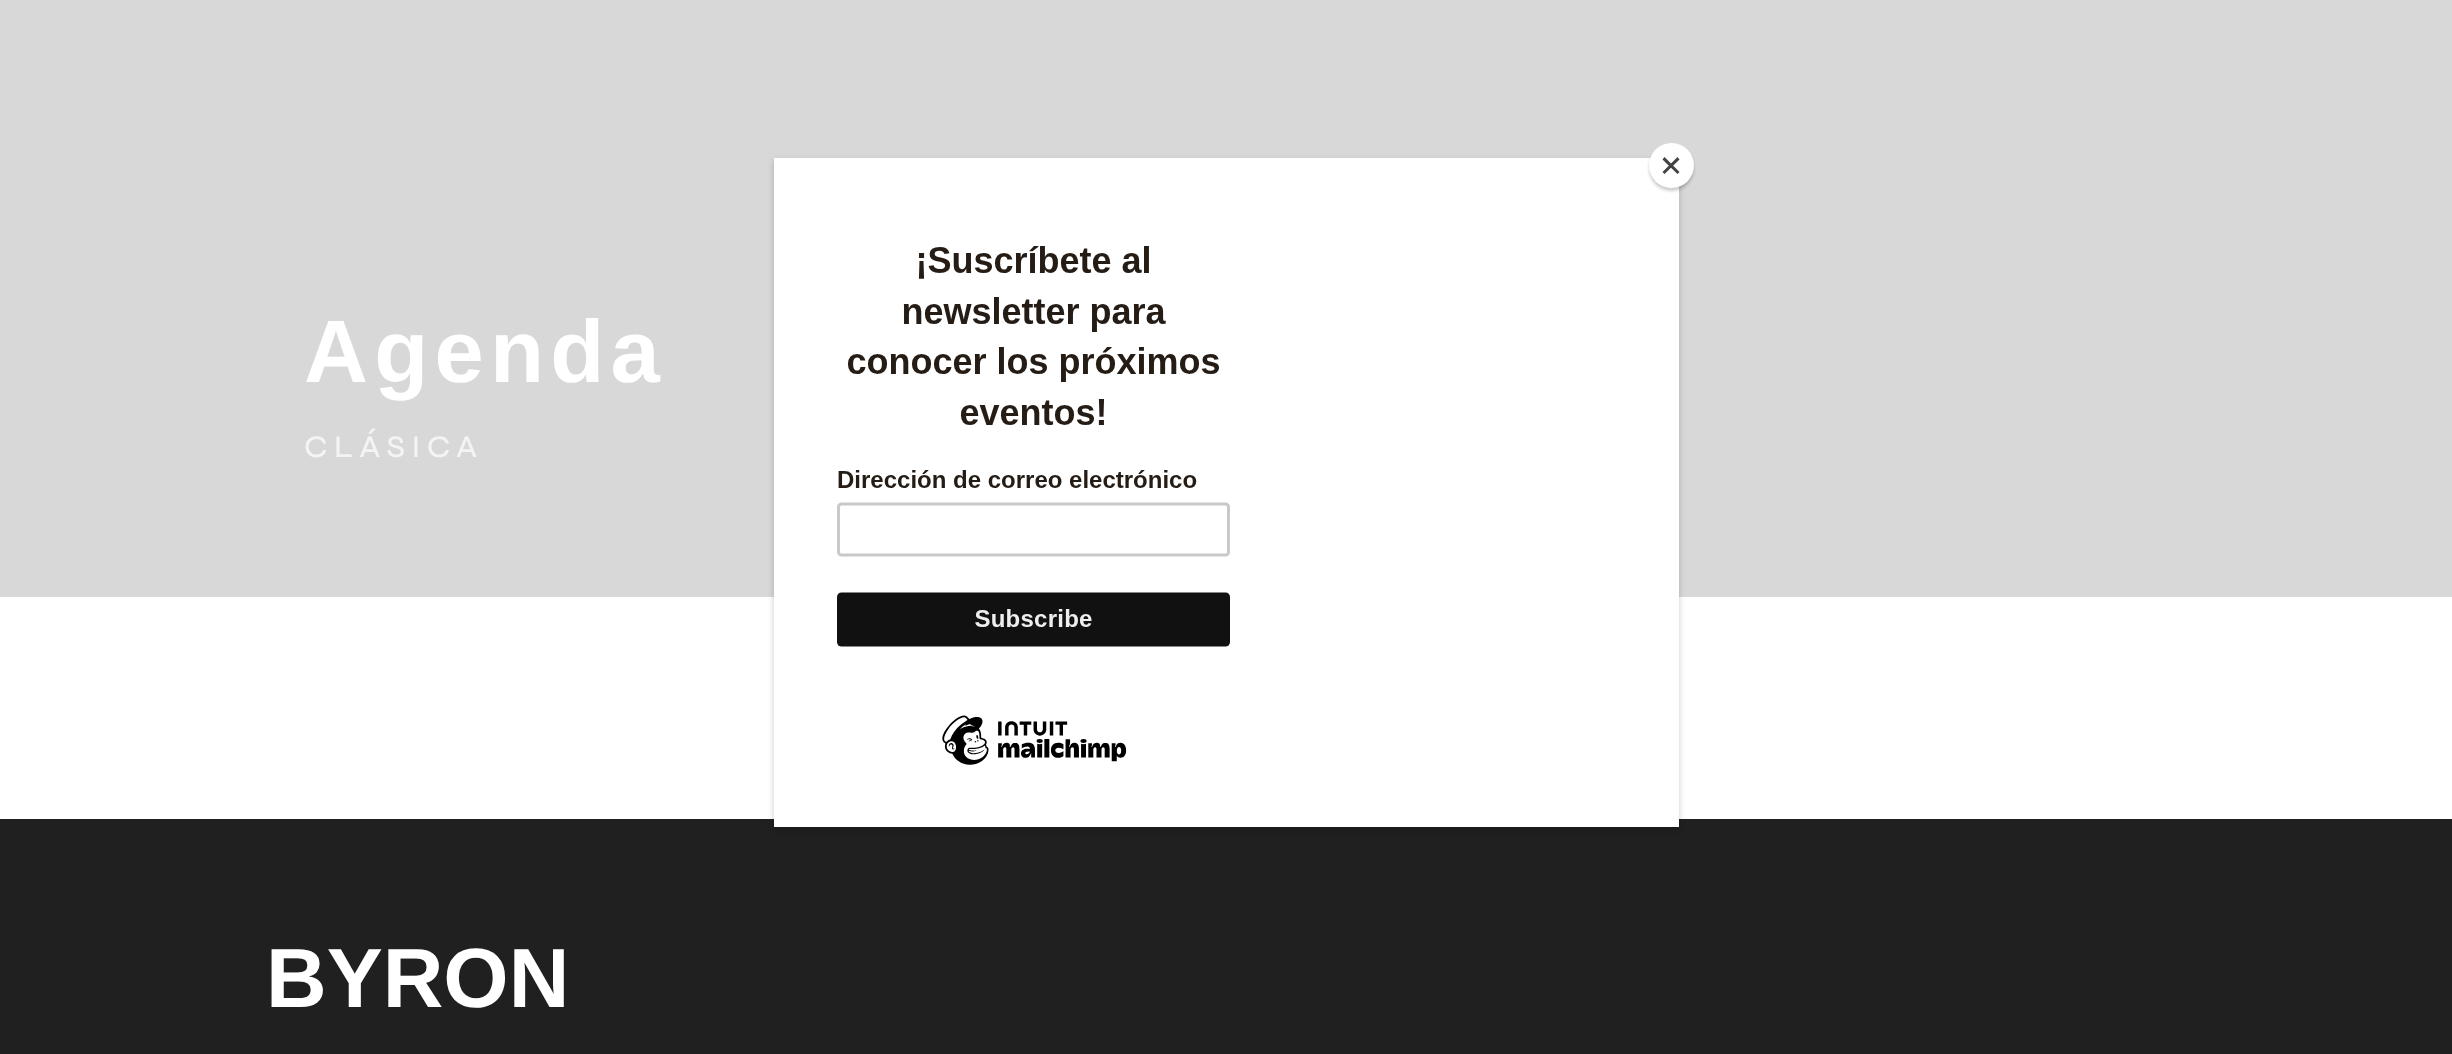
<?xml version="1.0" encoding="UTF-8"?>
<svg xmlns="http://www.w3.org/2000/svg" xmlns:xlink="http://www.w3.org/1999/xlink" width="2452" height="1054">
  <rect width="100%" height="100%" fill="#ffffff" />
  <rect width="2452" height="597" fill="#d8d8d8" />
  <rect y="819" width="2452" height="235" fill="#202020" />
  <rect x="774" y="161" width="905" height="669" fill="#000000" fill-opacity="0.2" filter="blur(3px)" />
  <image x="774" y="158" width="905" height="669" xlink:href="image1.png" />
  <rect x="1649" y="146" width="45" height="45" rx="22.5" fill="#000000" fill-opacity="0.2" filter="blur(1.5px)" />
  <circle cx="1671.5" cy="165.5" r="22.5" fill="#ffffff" />
  <path d="M 1677.5 157 l 2 2.5 l -15 14.5 l -2 -2 z" fill="#414141" />
  <path d="M 1662.5 159.5 l 2 -2.5 l 15 15 l -2 2 z" fill="#414141" />
  <text x="304" y="382" style="font-family: Liberation Sans; font-size: 88.5px; font-weight: bold; letter-spacing: 6.25px; fill: #ffffff">Agenda</text>
  <text x="304" y="457" style="font-family: Syne; font-size: 31.5px; font-weight: 500; letter-spacing: 6.25px; fill: #f4f4f4">CLÁSICA</text>
  <text x="266" y="1007" style="font-family: Liberation Sans; font-size: 84px; font-weight: bold; fill: #ffffff">BYRON</text>
</svg>
